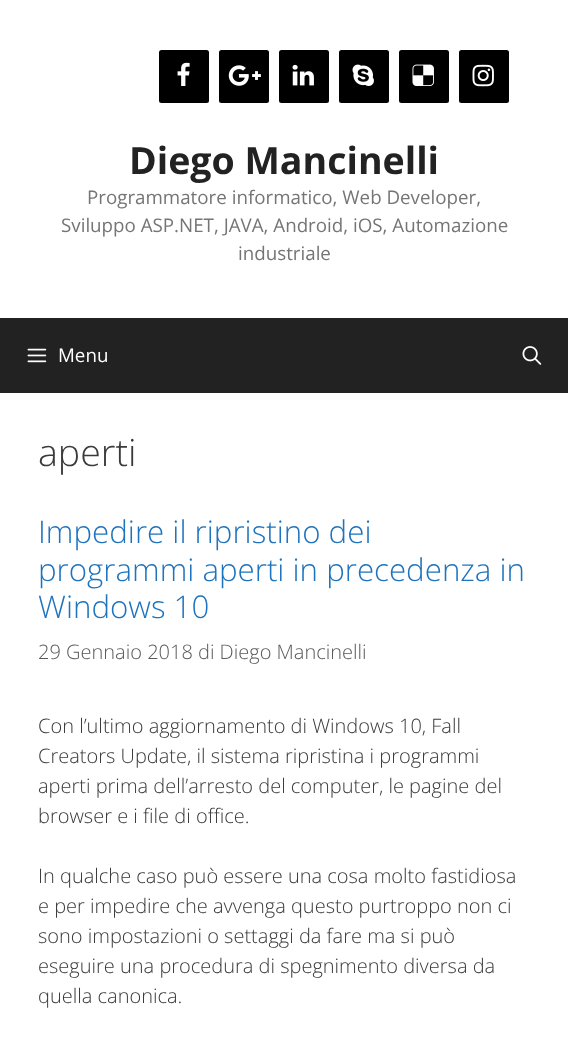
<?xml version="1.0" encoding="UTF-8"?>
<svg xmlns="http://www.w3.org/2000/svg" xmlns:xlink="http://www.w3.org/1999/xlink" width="568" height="1045">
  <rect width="100%" height="100%" fill="#222222" />
  <rect width="568" height="318" fill="#ffffff" />
  <rect x="159" y="50" width="50" height="53" rx="2.5" fill="#000000" />
  <image x="177" y="62" width="13" height="24" xlink:href="image1.png" />
  <rect x="219" y="50" width="50" height="53" rx="2.5" fill="#000000" />
  <image x="228" y="65" width="33" height="21" xlink:href="image2.png" />
  <rect x="279" y="50" width="50" height="53" rx="2.5" fill="#000000" />
  <image x="292" y="64" width="22" height="22" xlink:href="image3.png" />
  <rect x="339" y="50" width="50" height="53" rx="2.5" fill="#000000" />
  <image x="352" y="64" width="22" height="22" xlink:href="image4.png" />
  <rect x="399" y="50" width="50" height="53" rx="2.5" fill="#000000" />
  <image x="412" y="64" width="22" height="22" xlink:href="image5.png" />
  <rect x="459" y="50" width="50" height="53" rx="2.5" fill="#000000" />
  <image x="472" y="64" width="22" height="23" xlink:href="image6.png" />
  <image x="27" y="348" width="20" height="15" xlink:href="image7.png" />
  <image x="522" y="346" width="20" height="19" xlink:href="image8.png" />
  <rect y="393" width="568" height="652" fill="#ffffff" />
  <text x="129" y="174" style="font-family: Open Sans; font-size: 37.5px; font-weight: bold; fill: #222222">Diego Mancinelli</text>
  <text x="87" y="204" style="font-family: Open Sans; font-size: 18.75px; fill: #757575">Programmatore informatico, Web Developer,</text>
  <text x="61" y="232" style="font-family: Open Sans; font-size: 18.75px; fill: #757575">Sviluppo ASP.NET, JAVA, Android, iOS, Automazione</text>
  <text x="238" y="260" style="font-family: Open Sans; font-size: 18.75px; fill: #757575">industriale</text>
  <text x="58" y="362" style="font-family: Open Sans; font-size: 18.75px; fill: #ffffff">Menu</text>
  <text x="38" y="466" style="font-family: Open Sans; font-size: 37.5px; font-weight: 300; fill: #3a3a3a">aperti</text>
  <text x="38" y="543" style="font-family: Open Sans; font-size: 31.25px; font-weight: 300; fill: #1e73be">Impedire il ripristino dei</text>
  <text x="38" y="581" style="font-family: Open Sans; font-size: 31.25px; font-weight: 300; fill: #1e73be">programmi aperti in precedenza in</text>
  <text x="38" y="618" style="font-family: Open Sans; font-size: 31.25px; font-weight: 300; fill: #1e73be">Windows 10</text>
  <text x="38" y="659" style="font-family: Open Sans; font-size: 20px; font-weight: 300; fill: #595959">29 Gennaio 2018 di Diego Mancinelli</text>
  <text x="38" y="733" style="font-family: Open Sans; font-size: 20px; font-weight: 300; fill: #3a3a3a">Con l’ultimo aggiornamento di Windows 10, Fall</text>
  <text x="38" y="763" style="font-family: Open Sans; font-size: 20px; font-weight: 300; fill: #3a3a3a">Creators Update, il sistema ripristina i programmi</text>
  <text x="38" y="793" style="font-family: Open Sans; font-size: 20px; font-weight: 300; fill: #3a3a3a">aperti prima dell’arresto del computer, le pagine del</text>
  <text x="38" y="823" style="font-family: Open Sans; font-size: 20px; font-weight: 300; fill: #3a3a3a">browser e i file di office.</text>
  <text x="38" y="883" style="font-family: Open Sans; font-size: 20px; font-weight: 300; fill: #3a3a3a">In qualche caso può essere una cosa molto fastidiosa</text>
  <text x="38" y="913" style="font-family: Open Sans; font-size: 20px; font-weight: 300; fill: #3a3a3a">e per impedire che avvenga questo purtroppo non ci</text>
  <text x="38" y="943" style="font-family: Open Sans; font-size: 20px; font-weight: 300; fill: #3a3a3a">sono impostazioni o settaggi da fare ma si può</text>
  <text x="38" y="973" style="font-family: Open Sans; font-size: 20px; font-weight: 300; fill: #3a3a3a">eseguire una procedura di spegnimento diversa da</text>
  <text x="38" y="1003" style="font-family: Open Sans; font-size: 20px; font-weight: 300; fill: #3a3a3a">quella canonica.</text>
</svg>
